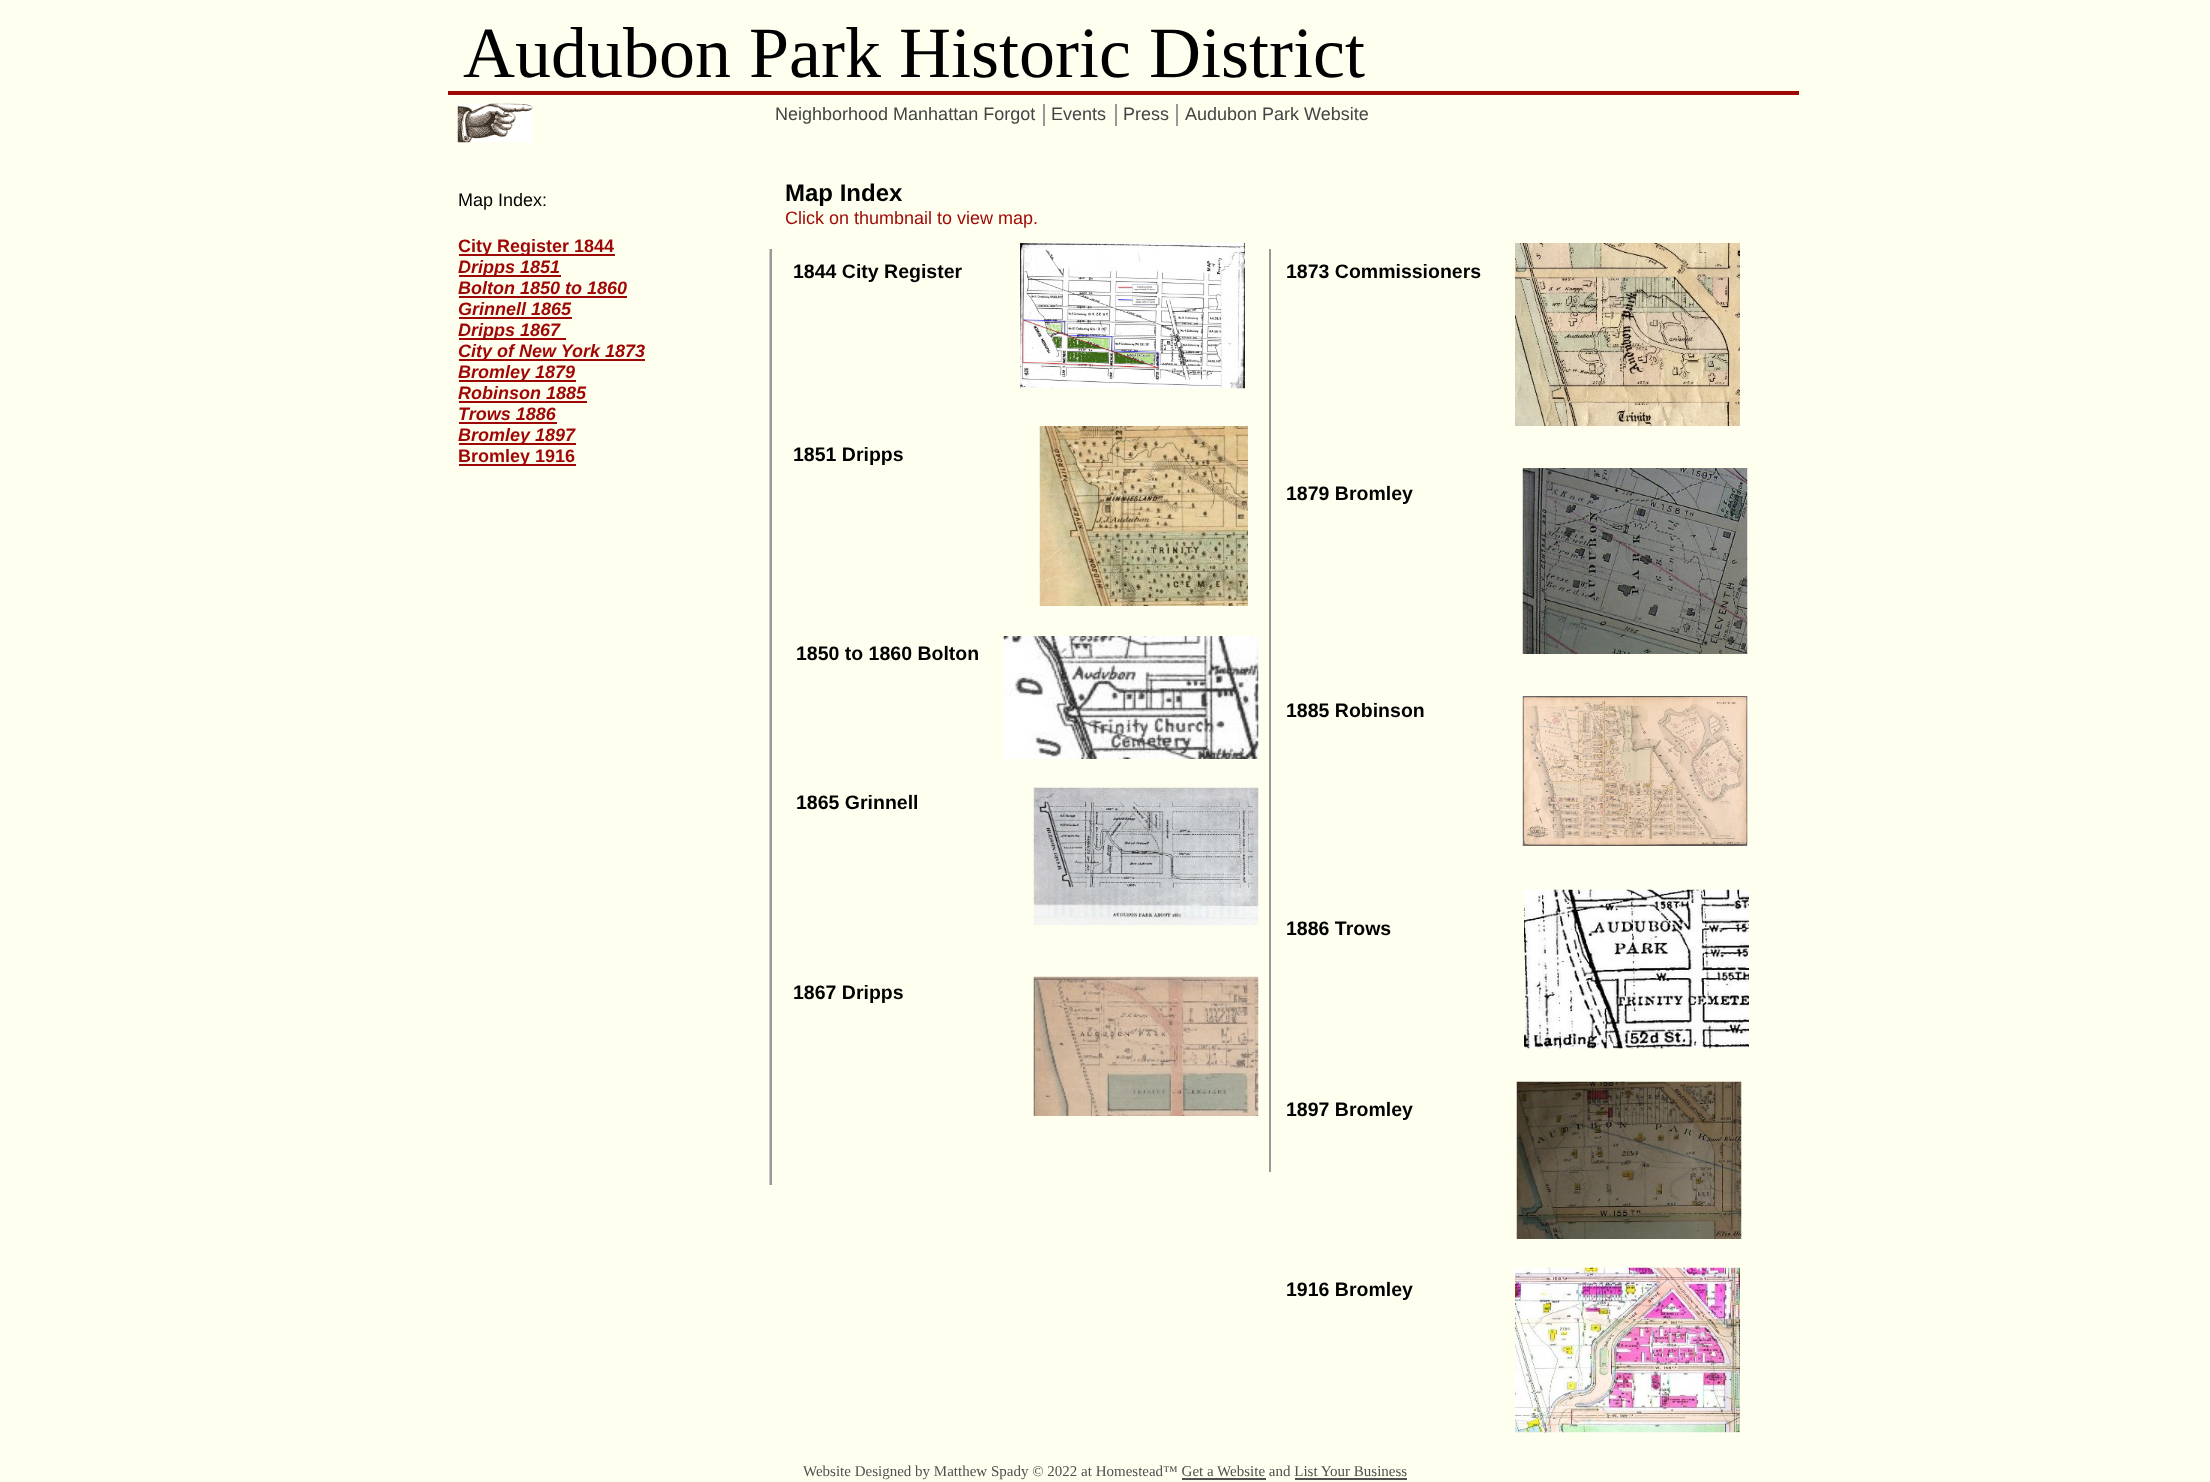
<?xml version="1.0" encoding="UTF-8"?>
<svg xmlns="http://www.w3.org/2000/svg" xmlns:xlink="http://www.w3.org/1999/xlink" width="2210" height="1482">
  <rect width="100%" height="100%" fill="#fffff0" />
  <rect x="448" y="91" width="1351" height="4" fill="#9e0704" />
  <image x="457" y="103" width="76" height="40" xlink:href="image1.png" />
  <rect x="1043" y="104" width="2" height="22" fill="#999999" />
  <rect x="1115" y="104" width="2" height="22" fill="#999999" />
  <rect x="1176" y="104" width="2" height="22" fill="#999999" />
  <rect x="459" y="254" width="156" height="2" fill="#9e0704" />
  <rect x="459" y="275" width="102" height="2" fill="#9e0704" />
  <rect x="459" y="296" width="168" height="2" fill="#9e0704" />
  <rect x="459" y="317" width="113" height="2" fill="#9e0704" />
  <rect x="459" y="338" width="107" height="2" fill="#9e0704" />
  <rect x="459" y="359" width="186" height="2" fill="#9e0704" />
  <rect x="459" y="380" width="117" height="2" fill="#9e0704" />
  <rect x="459" y="401" width="128" height="2" fill="#9e0704" />
  <rect x="459" y="422" width="98" height="2" fill="#9e0704" />
  <rect x="459" y="443" width="117" height="2" fill="#9e0704" />
  <rect x="459" y="464" width="117" height="2" fill="#9e0704" />
  <rect x="770" y="249" width="2" height="936" fill="#999999" />
  <rect x="769" y="249" width="1" height="936" fill="#ccccc5" />
  <image x="1020" y="243" width="225" height="146" xlink:href="image2.png" />
  <rect x="1269" y="249" width="2" height="923" fill="#999999" />
  <image x="1515" y="243" width="225" height="183" xlink:href="image3.png" />
  <image x="1039" y="426" width="209" height="180" xlink:href="image4.png" />
  <image x="1522" y="468" width="226" height="186" xlink:href="image5.png" />
  <image x="1003" y="636" width="256" height="123" xlink:href="image6.png" />
  <image x="1522" y="696" width="226" height="150" xlink:href="image7.png" />
  <image x="1033" y="787" width="226" height="139" xlink:href="image8.png" />
  <image x="1524" y="889" width="225" height="160" xlink:href="image9.png" />
  <image x="1033" y="976" width="226" height="140" xlink:href="image10.png" />
  <image x="1516" y="1081" width="226" height="158" xlink:href="image11.png" />
  <image x="1515" y="1267" width="225" height="166" xlink:href="image12.png" />
  <rect x="1182" y="1478" width="84" height="2" fill="#505050" />
  <rect x="1295" y="1478" width="112" height="2" fill="#505050" />
  <text x="463" y="77" style="font-family: Liberation Serif; font-size: 72px; fill: #000000">Audubon Park Historic District</text>
  <text x="775" y="120" style="font-family: Liberation Sans; font-size: 18px; fill: #444444">Neighborhood Manhattan Forgot</text>
  <text x="1051" y="120" style="font-family: Liberation Sans; font-size: 18px; fill: #444444">Events</text>
  <text x="1123" y="120" style="font-family: Liberation Sans; font-size: 18px; fill: #444444">Press</text>
  <text x="1185" y="120" style="font-family: Liberation Sans; font-size: 18px; fill: #444444">Audubon Park Website</text>
  <text x="458" y="206" style="font-family: Liberation Sans; font-size: 18px; fill: #000000">Map Index:</text>
  <text x="458" y="252" style="font-family: Liberation Sans; font-size: 18px; font-weight: bold; fill: #9e0704">City Register 1844</text>
  <text x="458" y="273" style="font-family: Liberation Sans; font-size: 18px; font-weight: bold; font-style: italic; fill: #9e0704">Dripps 1851</text>
  <text x="458" y="294" style="font-family: Liberation Sans; font-size: 18px; font-weight: bold; font-style: italic; fill: #9e0704">Bolton 1850 to 1860</text>
  <text x="458" y="315" style="font-family: Liberation Sans; font-size: 18px; font-weight: bold; font-style: italic; fill: #9e0704">Grinnell 1865</text>
  <text x="458" y="336" style="font-family: Liberation Sans; font-size: 18px; font-weight: bold; font-style: italic; fill: #9e0704">Dripps 1867</text>
  <text x="458" y="357" style="font-family: Liberation Sans; font-size: 18px; font-weight: bold; font-style: italic; fill: #9e0704">City of New York 1873</text>
  <text x="458" y="378" style="font-family: Liberation Sans; font-size: 18px; font-weight: bold; font-style: italic; fill: #9e0704">Bromley 1879</text>
  <text x="458" y="399" style="font-family: Liberation Sans; font-size: 18px; font-weight: bold; font-style: italic; fill: #9e0704">Robinson 1885</text>
  <text x="458" y="420" style="font-family: Liberation Sans; font-size: 18px; font-weight: bold; font-style: italic; fill: #9e0704">Trows 1886</text>
  <text x="458" y="441" style="font-family: Liberation Sans; font-size: 18px; font-weight: bold; font-style: italic; fill: #9e0704">Bromley 1897</text>
  <text x="458" y="462" style="font-family: Liberation Sans; font-size: 18px; font-weight: bold; fill: #9e0704">Bromley 1916</text>
  <text x="785" y="201" style="font-family: Liberation Sans; font-size: 24px; font-weight: bold; fill: #000000">Map Index</text>
  <text x="785" y="224" style="font-family: Liberation Sans; font-size: 18px; fill: #9e0704">Click on thumbnail to view map.</text>
  <text x="793" y="278" style="font-family: Liberation Sans; font-size: 19.5px; font-weight: bold; fill: #000000">1844 City Register</text>
  <text x="1286" y="278" style="font-family: Liberation Sans; font-size: 19.5px; font-weight: bold; fill: #000000">1873 Commissioners</text>
  <text x="793" y="461" style="font-family: Liberation Sans; font-size: 19.5px; font-weight: bold; fill: #000000">1851 Dripps</text>
  <text x="1286" y="500" style="font-family: Liberation Sans; font-size: 19.5px; font-weight: bold; fill: #000000">1879 Bromley</text>
  <text x="796" y="660" style="font-family: Liberation Sans; font-size: 19.5px; font-weight: bold; fill: #000000">1850 to 1860 Bolton</text>
  <text x="1286" y="717" style="font-family: Liberation Sans; font-size: 19.5px; font-weight: bold; fill: #000000">1885 Robinson</text>
  <text x="796" y="809" style="font-family: Liberation Sans; font-size: 19.5px; font-weight: bold; fill: #000000">1865 Grinnell</text>
  <text x="1286" y="935" style="font-family: Liberation Sans; font-size: 19.5px; font-weight: bold; fill: #000000">1886 Trows</text>
  <text x="793" y="999" style="font-family: Liberation Sans; font-size: 19.5px; font-weight: bold; fill: #000000">1867 Dripps</text>
  <text x="1286" y="1116" style="font-family: Liberation Sans; font-size: 19.5px; font-weight: bold; fill: #000000">1897 Bromley</text>
  <text x="1286" y="1296" style="font-family: Liberation Sans; font-size: 19.5px; font-weight: bold; fill: #000000">1916 Bromley</text>
  <text x="803" y="1476" style="font-family: Liberation Serif; font-size: 15px; fill: #505050">Website Designed by Matthew Spady © 2022 at Homestead™ Get a Website and List Your Business</text>
</svg>
